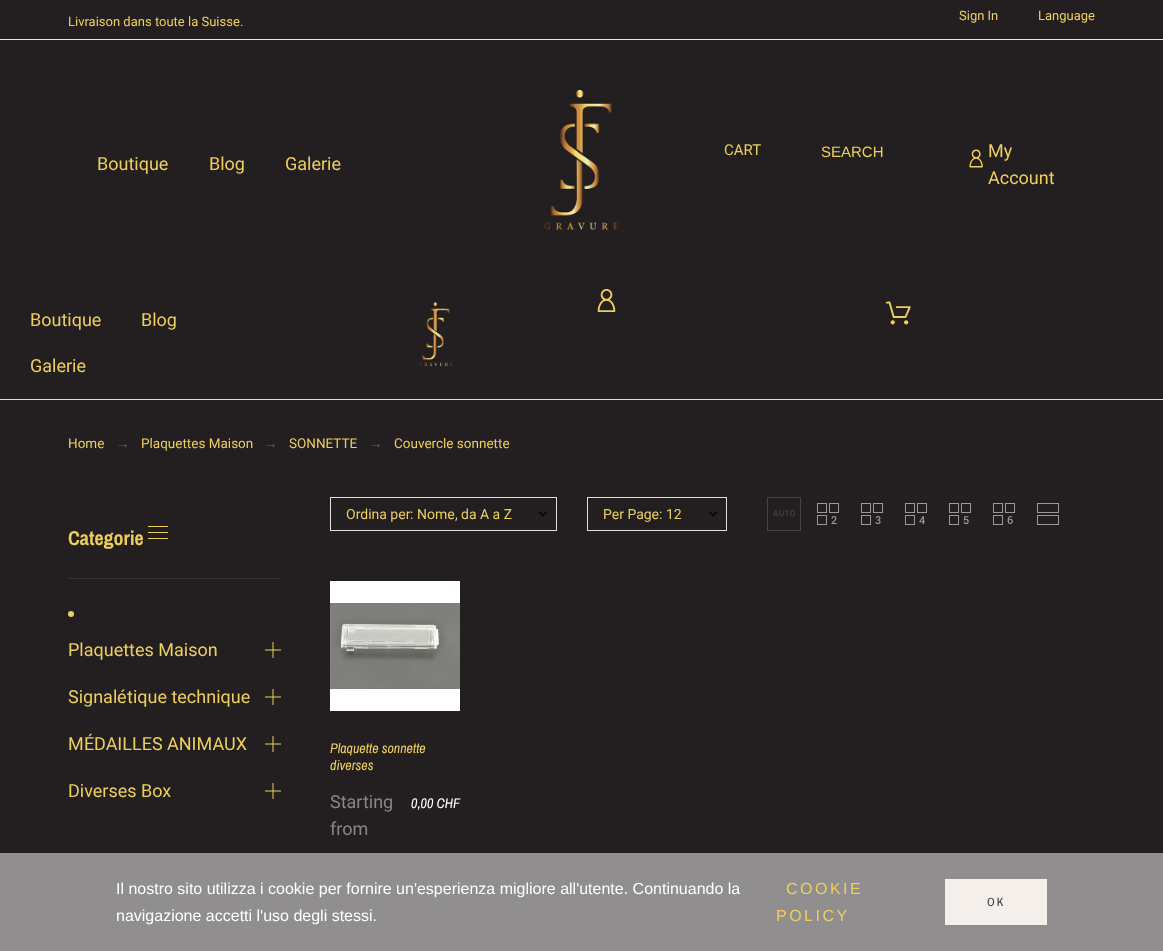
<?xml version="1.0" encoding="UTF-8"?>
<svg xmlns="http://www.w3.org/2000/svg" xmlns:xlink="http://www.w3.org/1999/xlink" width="1163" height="951">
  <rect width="100%" height="100%" fill="#231f20" />
  <rect y="399" width="1163" height="1" fill="#e1e1e1" />
  <rect y="39" width="1163" height="1" fill="#eaeaea" />
  <image x="542" y="86" width="78" height="145" xlink:href="image1.png" />
  <image x="969" y="149" width="14" height="19" xlink:href="image2.png" />
  <image x="419" y="302" width="34" height="65" xlink:href="image3.png" />
  <image x="597" y="289" width="19" height="23" xlink:href="image4.png" />
  <image x="885" y="301" width="26" height="24" xlink:href="image5.png" />
  <image x="148" y="526" width="20" height="13" xlink:href="image6.png" />
  <rect x="68" y="578" width="213" height="1" fill="#313537" />
  <circle cx="71" cy="614" r="3" fill="#edcf5f" />
  <image x="265" y="642" width="16" height="16" xlink:href="image7.png" />
  <image x="265" y="689" width="16" height="16" xlink:href="image7.png" />
  <image x="265" y="736" width="16" height="16" xlink:href="image7.png" />
  <image x="265" y="783" width="16" height="16" xlink:href="image7.png" />
  <rect x="330.5" y="497.5" width="226" height="33" fill="none" stroke="#dfdfdf" />
  <image x="539" y="511" width="8" height="6" xlink:href="image8.png" />
  <rect x="587.5" y="497.5" width="139" height="33" fill="none" stroke="#dfdfdf" />
  <image x="709" y="511" width="8" height="6" xlink:href="image8.png" />
  <rect x="767.5" y="497.5" width="33" height="33" fill="none" stroke="#444444" />
  <image x="773" y="510" width="22" height="7" xlink:href="image9.png" />
  <image x="817" y="503" width="22" height="22" xlink:href="image10.png" />
  <image x="861" y="503" width="22" height="22" xlink:href="image11.png" />
  <image x="905" y="503" width="22" height="22" xlink:href="image12.png" />
  <image x="949" y="503" width="22" height="22" xlink:href="image13.png" />
  <image x="993" y="503" width="22" height="22" xlink:href="image14.png" />
  <image x="1037" y="503" width="22" height="22" xlink:href="image15.png" />
  <image x="330" y="581" width="130" height="130" xlink:href="image16.png" />
  <rect y="853" width="1163" height="98" fill="#908e8f" />
  <rect x="945" y="879" width="102" height="46" fill="#f4efeb" />
  <text x="68" y="26" style="font-family: Roboto; font-size: 13px; fill: #edcf5f">Livraison dans toute la Suisse</text>
  <text x="240" y="26" style="font-family: 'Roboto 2'; font-size: 13px; fill: #edcf5f">.</text>
  <text x="959" y="20" style="font-family: Roboto; font-size: 13px; fill: #edcf5f">Sign In</text>
  <text x="1038" y="20" style="font-family: Roboto; font-size: 13px; fill: #edcf5f">Language</text>
  <text x="97" y="170" style="font-family: Roboto; font-size: 18px; fill: #edcf5f">Boutique</text>
  <text x="209" y="170" style="font-family: Roboto; font-size: 18px; fill: #edcf5f">Blog</text>
  <text x="285" y="170" style="font-family: Roboto; font-size: 18px; fill: #edcf5f">Galerie</text>
  <text x="724" y="155" style="font-family: Roboto; font-size: 15px; fill: #edcf5f">CART</text>
  <text x="821" y="157" style="font-family: Liberation Sans; font-size: 15px; fill: #edcf5f">SEARCH</text>
  <text x="988" y="157" style="font-family: Roboto; font-size: 18px; fill: #edcf5f">My</text>
  <text x="988" y="184" style="font-family: Roboto; font-size: 18px; fill: #edcf5f">Account</text>
  <text x="30" y="326" style="font-family: Roboto; font-size: 18px; fill: #edcf5f">Boutique</text>
  <text x="141" y="326" style="font-family: Roboto; font-size: 18px; fill: #edcf5f">Blog</text>
  <text x="30" y="372" style="font-family: Roboto; font-size: 18px; fill: #edcf5f">Galerie</text>
  <text x="68" y="448" style="font-family: Roboto; font-size: 13.5px; fill: #edcf5f">Home</text>
  <text x="116" y="448" style="font-family: Liberation Serif; font-size: 13.5px; fill: #666666">→</text>
  <text x="141" y="448" style="font-family: Roboto; font-size: 13.5px; fill: #edcf5f">Plaquettes Maison</text>
  <text x="264" y="448" style="font-family: Liberation Serif; font-size: 13.5px; fill: #666666">→</text>
  <text x="289" y="448" style="font-family: Roboto; font-size: 13.5px; fill: #edcf5f">SONNETTE</text>
  <text x="369" y="448" style="font-family: Liberation Serif; font-size: 13.5px; fill: #666666">→</text>
  <text x="394" y="448" style="font-family: Roboto; font-size: 13.5px; fill: #edcf5f">Couvercle sonnette</text>
  <text x="68" y="545" style="font-family: Archivo Narrow; font-size: 20px; font-weight: bold; fill: #edcf5f">Categorie</text>
  <text x="68" y="656" style="font-family: Roboto; font-size: 18px; fill: #edcf5f">Plaquettes Maison</text>
  <text x="68" y="703" style="font-family: Roboto; font-size: 18px; fill: #edcf5f">Signal</text>
  <text x="117" y="703" style="font-family: 'Roboto 2'; font-size: 18px; fill: #edcf5f">é</text>
  <text x="127" y="703" style="font-family: Roboto; font-size: 18px; fill: #edcf5f">tique technique</text>
  <text x="68" y="750" style="font-family: Roboto; font-size: 18px; fill: #edcf5f">M</text>
  <text x="84" y="750" style="font-family: 'Roboto 2'; font-size: 18px; fill: #edcf5f">É</text>
  <text x="94" y="750" style="font-family: Roboto; font-size: 18px; fill: #edcf5f">DAILLES ANIMAUX</text>
  <text x="68" y="797" style="font-family: Roboto; font-size: 18px; fill: #edcf5f">Diverses Box</text>
  <text x="346" y="519" style="font-family: Roboto; font-size: 14px; fill: #edcf5f">Ordina per</text>
  <text x="410" y="519" style="font-family: 'Roboto 2'; font-size: 14px; fill: #edcf5f">:</text>
  <text x="417" y="519" style="font-family: Roboto; font-size: 14px; fill: #edcf5f">Nome</text>
  <text x="455" y="519" style="font-family: 'Roboto 2'; font-size: 14px; fill: #edcf5f">,</text>
  <text x="461" y="519" style="font-family: Roboto; font-size: 14px; fill: #edcf5f">da A a Z</text>
  <text x="603" y="519" style="font-family: Roboto; font-size: 14px; fill: #edcf5f">Per Page</text>
  <text x="659" y="519" style="font-family: 'Roboto 2'; font-size: 14px; fill: #edcf5f">:</text>
  <text x="666" y="519" style="font-family: Roboto; font-size: 14px; fill: #edcf5f">12</text>
  <text x="330" y="753" style="font-family: Archivo Narrow; font-size: 14px; font-style: italic; fill: #edcf5f">Plaquette sonnette</text>
  <text x="330" y="770" style="font-family: Archivo Narrow; font-size: 14px; font-style: italic; fill: #edcf5f">diverses</text>
  <text x="330" y="808" style="font-family: Roboto; font-size: 18px; fill: #878787">Starting</text>
  <text x="411" y="808" style="font-family: Archivo Narrow; font-size: 14px; font-style: italic; fill: #ffffff">0,00 CHF</text>
  <text x="330" y="835" style="font-family: Roboto; font-size: 18px; fill: #878787">from</text>
  <text x="116" y="894" style="font-family: Liberation Sans; font-size: 16px; fill: #ffffff">Il nostro sito utilizza i cookie per fornire un'esperienza migliore all'utente. Continuando la</text>
  <text x="116" y="921" style="font-family: Liberation Sans; font-size: 16px; fill: #ffffff">navigazione accetti l'uso degli stessi.</text>
  <text x="786" y="894" style="font-family: Liberation Sans; font-size: 16px; letter-spacing: 2.5px; fill: #edcf5f">COOKIE</text>
  <text x="776" y="921" style="font-family: Liberation Sans; font-size: 16px; letter-spacing: 2.5px; fill: #edcf5f">POLICY</text>
  <text x="987" y="906" style="font-family: Archivo Narrow; font-size: 12px; letter-spacing: 2px; fill: #333333">OK</text>
</svg>
